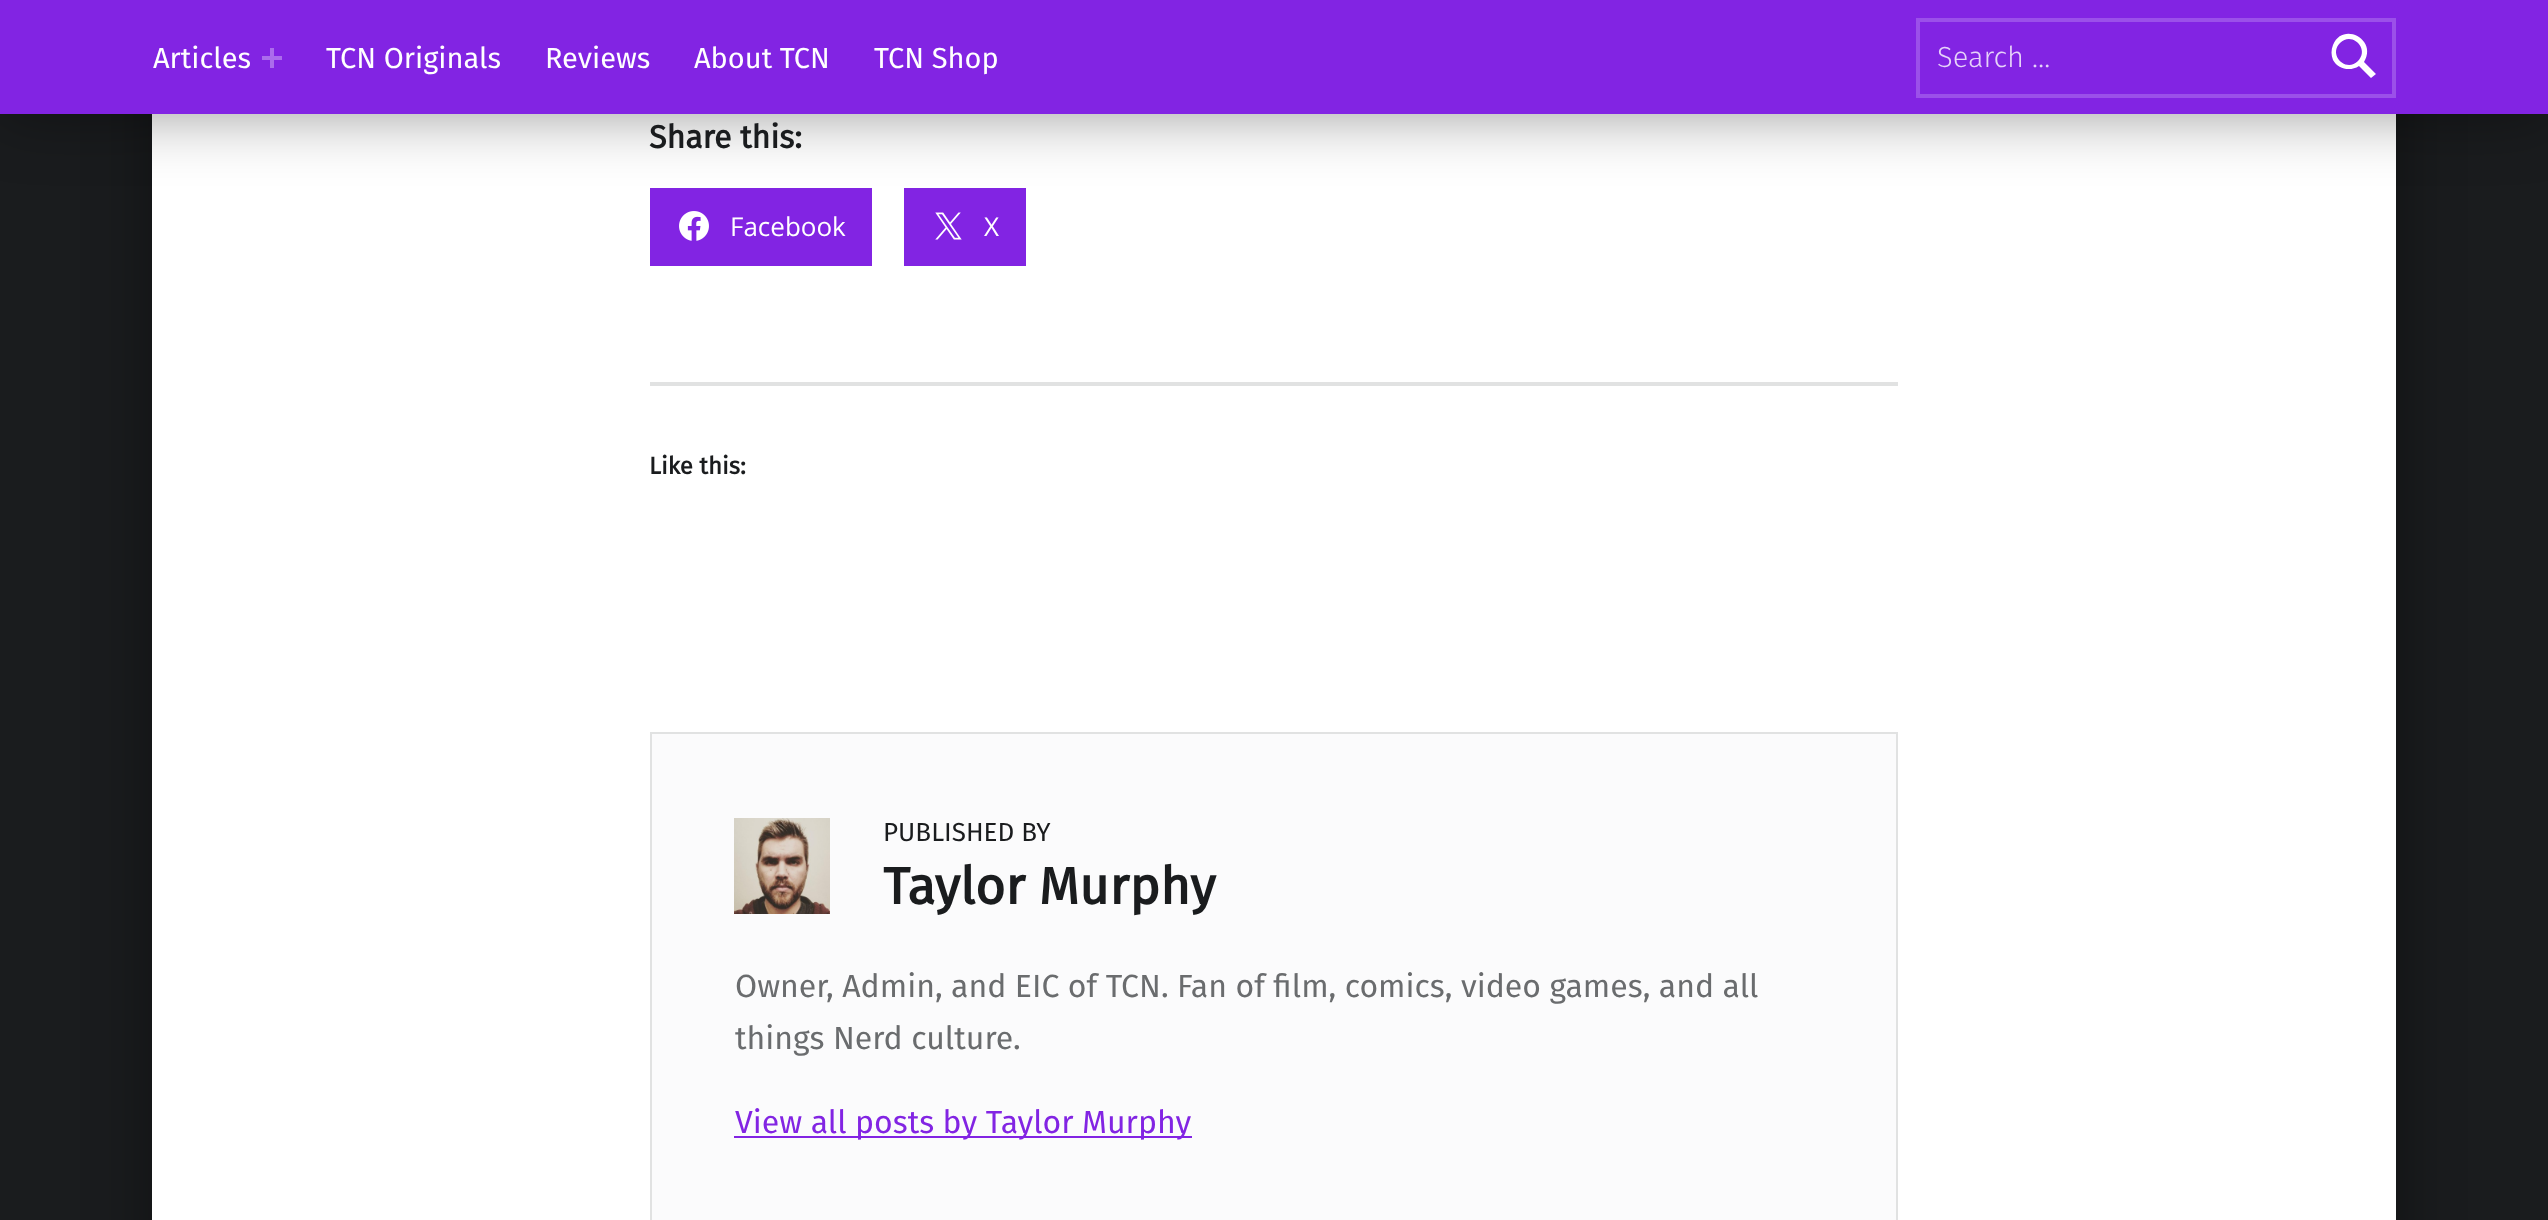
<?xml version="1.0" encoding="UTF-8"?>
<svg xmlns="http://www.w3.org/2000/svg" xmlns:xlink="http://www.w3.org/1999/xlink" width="2548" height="1220">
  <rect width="100%" height="100%" fill="#1a1c1e" />
  <rect x="152" y="-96" width="2244" height="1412" fill="#000000" fill-opacity="0.4" filter="blur(32px)" />
  <rect x="152" y="114" width="2244" height="1106" fill="#ffffff" />
  <rect x="650" y="188" width="222" height="78" fill="#8224e3" />
  <rect x="904" y="188" width="122" height="78" fill="#8224e3" />
  <rect width="2548" height="114" fill="#000000" fill-opacity="0.4" filter="blur(32px)" />
  <rect width="2548" height="114" fill="#8224e3" />
  <rect x="262" y="56" width="20" height="4" fill="#ab6cec" />
  <rect x="270" y="48" width="4" height="20" fill="#ab6cec" />
  <rect x="1918" y="20" width="476" height="76" fill="none" stroke="#9b50e9" stroke-width="4" />
  <path d="M 2376 74 l -5 4 l -12 -12 c -9 6 -21 3 -26 -6 c -2 -5 -2 -10 0 -15 c 10 -24 45 -5 31 17 z m -36 -31 c -12 12 6 30 18 18 c 12 -12 -6 -30 -18 -18 z" fill="#ffffff" />
  <image x="679" y="211" width="30" height="30" xlink:href="image1.png" />
  <image x="935" y="212" width="27" height="28" xlink:href="image2.png" />
  <rect x="650" y="382" width="1248" height="4" fill="#e1e2e2" />
  <rect x="651" y="733" width="1246" height="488" fill="none" stroke="#e1e2e2" stroke-width="2" />
  <rect x="652" y="734" width="1244" height="486" fill="#fbfbfc" />
  <image x="734" y="818" width="96" height="96" xlink:href="image3.png" />
  <rect x="734" y="1136" width="458" height="2" fill="#8224e3" />
  <text x="153" y="68" style="font-family: Fira Sans; font-size: 29px; fill: #ffffff">Articles</text>
  <text x="326" y="68" style="font-family: Fira Sans; font-size: 29px; fill: #ffffff">TCN Originals</text>
  <text x="545" y="68" style="font-family: Fira Sans; font-size: 29px; fill: #ffffff">Reviews</text>
  <text x="694" y="68" style="font-family: Fira Sans; font-size: 29px; fill: #ffffff">About TCN</text>
  <text x="874" y="68" style="font-family: Fira Sans; font-size: 29px; fill: #ffffff">TCN Shop</text>
  <text x="1937" y="67" style="font-family: Fira Sans; font-size: 29px; font-weight: 300; fill: #e6d3f9">Search …</text>
  <text x="649" y="148" style="font-family: Fira Sans; font-size: 32px; font-weight: bold; fill: #1a1c1e">Share this:</text>
  <text x="730" y="236" style="font-family: Open Sans; font-size: 26px; fill: #ffffff">Facebook</text>
  <text x="984" y="236" style="font-family: Open Sans; font-size: 26px; fill: #ffffff">X</text>
  <text x="649" y="474" style="font-family: Fira Sans; font-size: 24px; font-weight: bold; fill: #1a1c1e">Like this:</text>
  <text x="883" y="841" style="font-family: Fira Sans; font-size: 26px; fill: #1a1c1e">PUBLISHED BY</text>
  <text x="883" y="904" style="font-family: Fira Sans; font-size: 51.75px; font-weight: bold; fill: #1a1c1e">Taylor Murphy</text>
  <text x="735" y="997" style="font-family: Fira Sans; font-size: 32px; fill: #6a6c6e">Owner, Admin, and EIC of TCN. Fan of film, comics, video games, and all</text>
  <text x="735" y="1049" style="font-family: Fira Sans; font-size: 32px; fill: #6a6c6e">things Nerd culture.</text>
  <text x="735" y="1133" style="font-family: Fira Sans; font-size: 32px; fill: #8224e3">View all posts by Taylor Murphy</text>
</svg>
